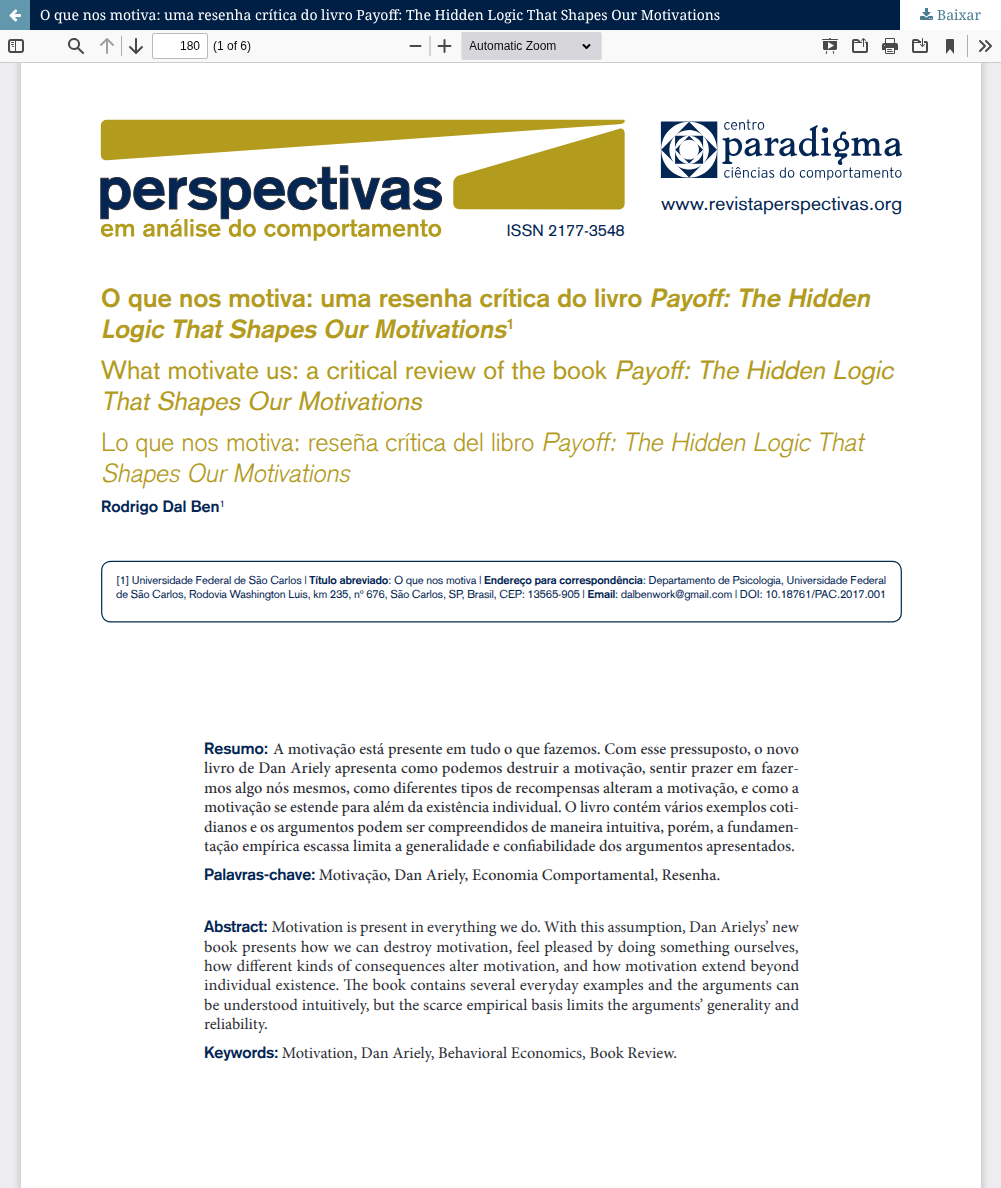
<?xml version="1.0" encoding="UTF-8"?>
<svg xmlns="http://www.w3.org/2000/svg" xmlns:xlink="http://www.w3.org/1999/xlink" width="1001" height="1188">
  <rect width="100%" height="100%" fill="#ffffff" />
  <rect x="30" width="870" height="30" fill="#001f44" />
  <rect width="30" height="30" fill="#6298ae" />
  <image x="9" y="9" width="12" height="13" xlink:href="image1.png" />
  <image x="920" y="8" width="13" height="12" xlink:href="image2.png" />
  <image x="0" y="30" width="1001" height="1158" xlink:href="image3.png" />
  <text x="40" y="20" style="font-family: Noto Serif; font-size: 14px; fill: #ffffff">O que nos motiva: uma resenha crítica do livro Payoff: The Hidden Logic That Shapes Our Motivations</text>
  <text x="937" y="20" style="font-family: Noto Serif; font-size: 14px; fill: #4b7d92">Baixar</text>
</svg>
